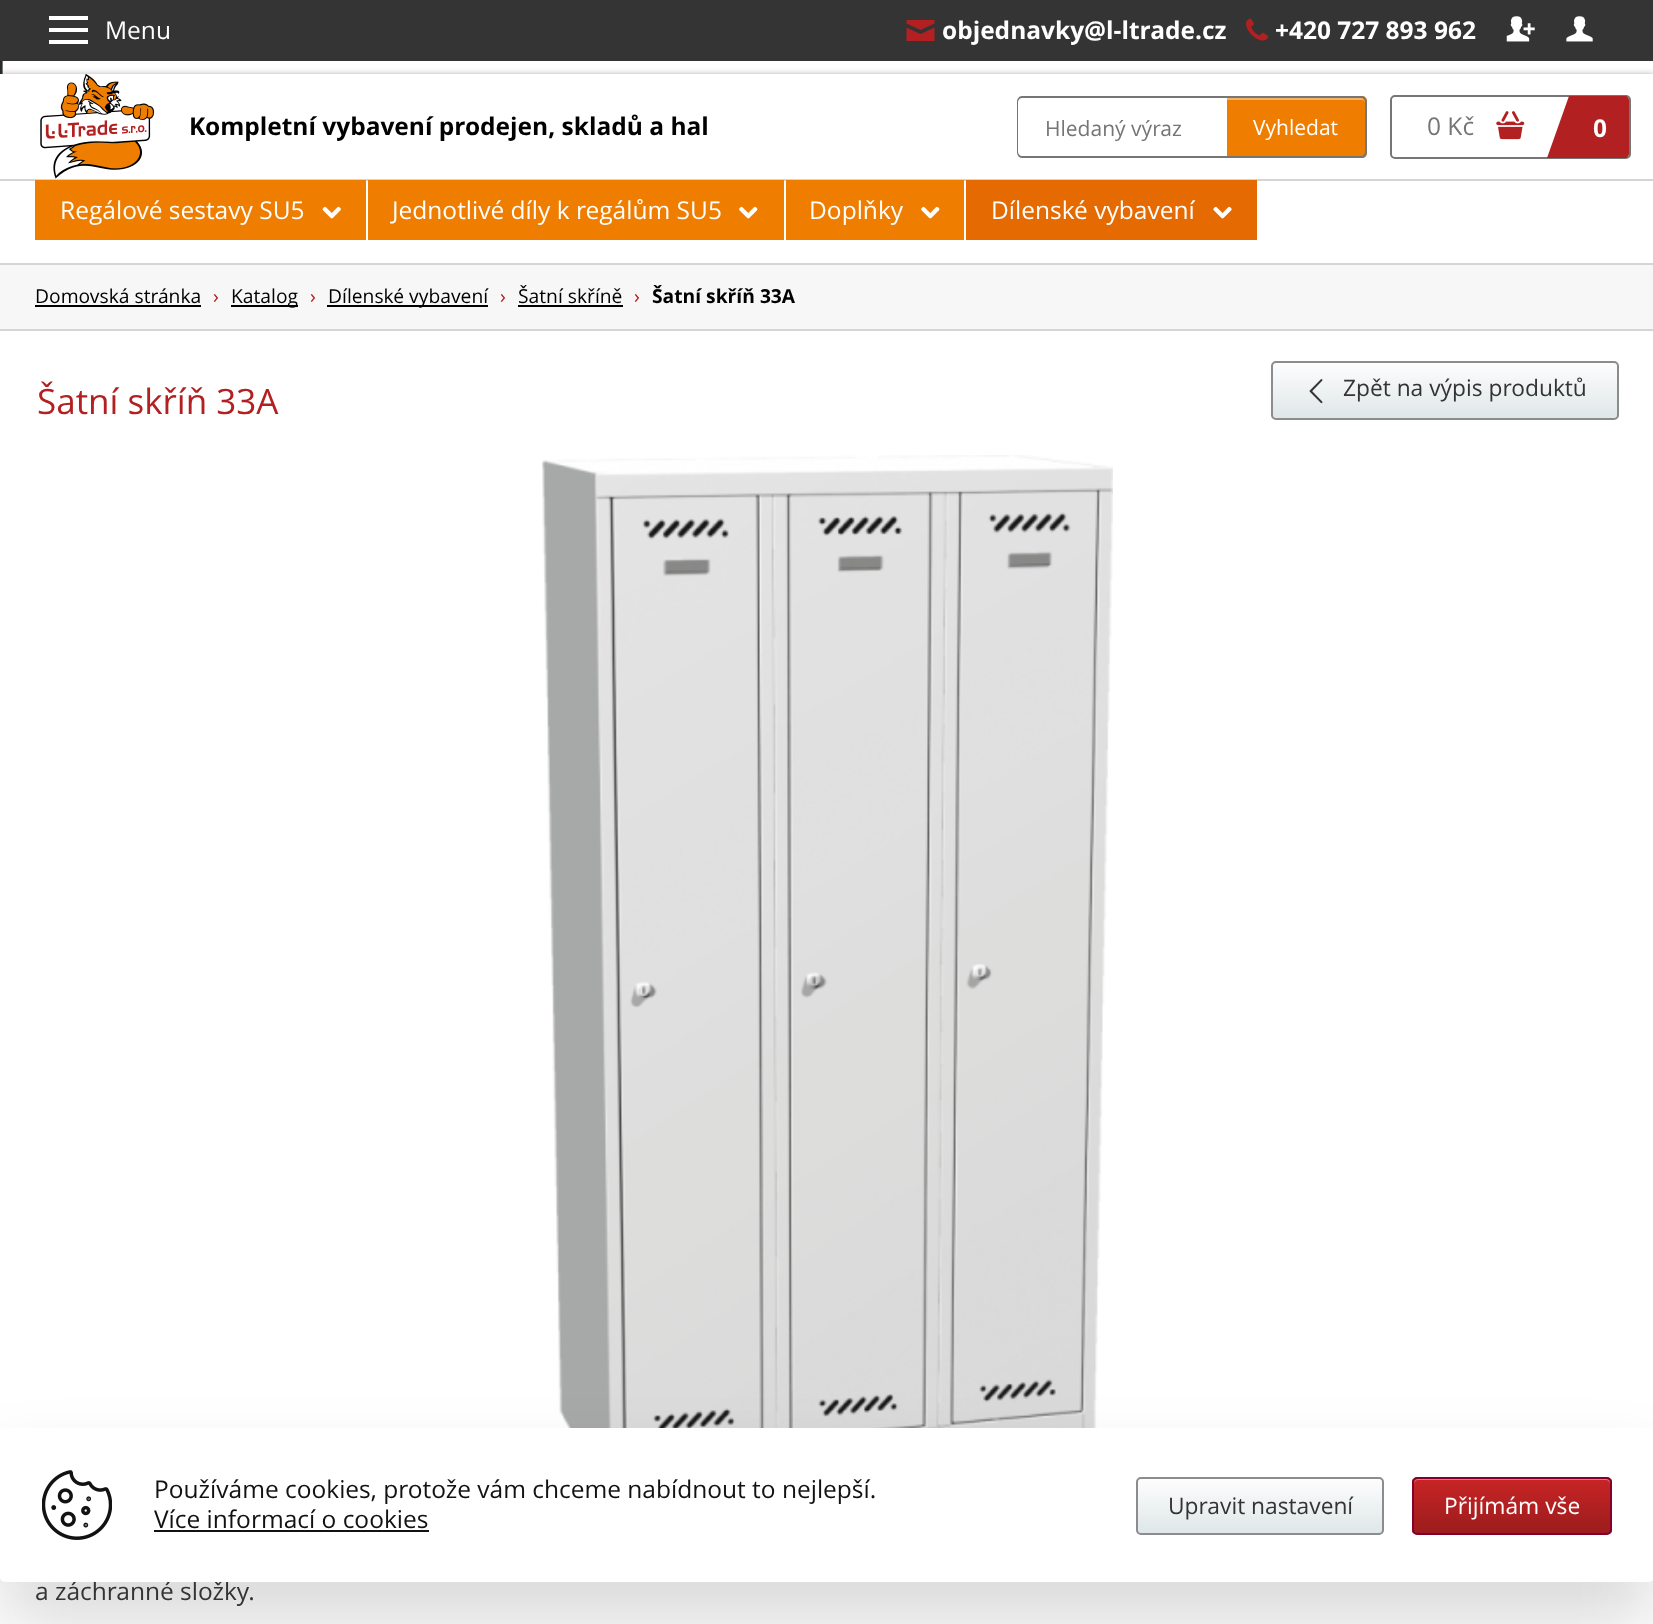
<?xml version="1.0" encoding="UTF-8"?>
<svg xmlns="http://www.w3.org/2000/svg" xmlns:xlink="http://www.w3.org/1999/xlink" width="1653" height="1624">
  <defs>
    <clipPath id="clip1"><rect x="1271" y="361" width="348" height="59" rx="5" /></clipPath>
    <linearGradient id="g1" gradientUnits="userSpaceOnUse" x1="1445" y1="362" x2="1445" y2="418"><stop offset="0" stop-color="#fdfdfe" /><stop offset="1" stop-color="#dfe7e8" /></linearGradient>
    <clipPath id="clip2"><rect x="1136" y="1477" width="248" height="58" rx="5" /></clipPath>
    <linearGradient id="g2" gradientUnits="userSpaceOnUse" x1="1260" y1="1479" x2="1260" y2="1533"><stop offset="0" stop-color="#fdfdfe" /><stop offset="1" stop-color="#dfe7e8" /></linearGradient>
    <clipPath id="clip3"><rect x="1412" y="1477" width="200" height="58" rx="5" /></clipPath>
    <linearGradient id="g3" gradientUnits="userSpaceOnUse" x1="1512" y1="1479" x2="1512" y2="1533"><stop offset="0" stop-color="#c82425" /><stop offset="1" stop-color="#9c1c1d" /></linearGradient>
  </defs>
  <rect width="100%" height="100%" fill="#ffffff" />
  <image x="0" y="61" width="3" height="13" xlink:href="image1.png" />
  <rect width="1653" height="61" fill="#343434" />
  <rect x="49" y="16" width="39" height="4" fill="#ffffff" />
  <rect x="49" y="28" width="39" height="4" fill="#ffffff" />
  <rect x="49" y="40" width="39" height="4" fill="#ffffff" />
  <path d="M 920.5 30 l 14 -6.5 v -3.5 h -28 v 3.5 z m 0 4 l -14 -6.5 v 13.5 h 28 v -13.5 z" fill="#b22021" />
  <image x="1246" y="18" width="22" height="23" xlink:href="image2.png" />
  <image x="1506" y="16" width="29" height="26" xlink:href="image3.png" />
  <image x="1566" y="16" width="27" height="26" xlink:href="image4.png" />
  <rect y="75" width="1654" height="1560" fill="#000000" fill-opacity="0.4" filter="blur(3.5px)" />
  <rect y="74" width="1653" height="1550" fill="#ffffff" />
  <image x="40" y="74" width="114" height="105" xlink:href="image5.png" />
  <path d="M 1022 96 h 205 v 62 h -205 c -3 0 -5 -3 -5 -6 v -50 c 0 -3 2 -6 5 -6 z m 0 2 h 205 v 58 h -205 c -2 0 -4 -2 -4 -4 v -50 c 0 -2 2 -4 4 -4 z" fill="#767676" fill-rule="evenodd" />
  <path d="M 1227 96 h 135 c 3 0 5 2 5 5 v 52 c 0 3 -2 5 -5 5 h -135 z" fill="#ef7d00" />
  <path d="M 1227 100 h 135 c 1 0 3 1 3 3 v -1 c 0 -2 -2 -4 -4 -4 h -134 z" fill="#f5b166" />
  <path d="M 1227 96 h 135 c 2 0 5 3 5 6 v 50 c 0 3 -3 6 -5 6 h -135 z m 0 2 h 135 c 1 0 3 2 3 4 v 50 c 0 2 -2 4 -3 4 h -135 z" fill="#767676" fill-rule="evenodd" />
  <rect x="1391" y="96" width="239" height="62" rx="4" fill="none" stroke="#767676" stroke-width="2" />
  <image x="1496" y="111" width="29" height="29" xlink:href="image6.png" />
  <path d="M 1547 158 l 22 -62 h 56 c 2 0 4 2 4 4 v 54 c 0 2 -2 4 -4 4 z" fill="#b22021" />
  <rect y="179" width="1653" height="2" fill="#d5d5d5" />
  <rect x="35" y="180" width="331" height="60" fill="#ef7d00" />
  <image x="322" y="206" width="19" height="13" xlink:href="image7.png" />
  <rect x="368" y="180" width="416" height="60" fill="#ef7d00" />
  <image x="739" y="206" width="19" height="13" xlink:href="image8.png" />
  <rect x="786" y="180" width="178" height="60" fill="#ef7d00" />
  <image x="921" y="206" width="19" height="13" xlink:href="image8.png" />
  <rect x="966" y="180" width="291" height="60" fill="#e56a01" />
  <image x="1213" y="206" width="19" height="13" xlink:href="image9.png" />
  <rect y="265" width="1653" height="64" fill="#f7f7f7" />
  <rect y="263" width="1653" height="2" fill="#d5d5d5" />
  <rect y="329" width="1653" height="2" fill="#d5d5d5" />
  <rect x="35" y="305" width="166" height="2" fill="#000000" />
  <rect x="231" y="305" width="67" height="2" fill="#000000" />
  <rect x="327" y="305" width="161" height="2" fill="#000000" />
  <rect x="518" y="305" width="105" height="2" fill="#000000" />
  <g clip-path="url(#clip1)">
    <rect x="1271" y="362" width="348" height="56" fill="url(#g1)" />
  </g>
  <rect x="1272" y="362" width="346" height="57" rx="4" fill="none" stroke="#8c8c8c" stroke-width="2" />
  <image x="1309" y="379" width="14" height="25" xlink:href="image10.png" />
  <image x="542" y="455" width="571" height="973" xlink:href="image11.png" />
  <rect y="1470" width="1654" height="154" rx="5" fill="#1a1a1a" fill-opacity="0.16" filter="blur(35px)" />
  <text x="105" y="39" style="font-family: Open Sans; font-size: 24.5px; fill: #ffffff">Menu</text>
  <text x="942" y="39" style="font-family: Open Sans; font-size: 24.5px; font-weight: bold; fill: #ffffff">objednavky@l-ltrade.cz</text>
  <text x="1275" y="39" style="font-family: Open Sans; font-size: 24.5px; font-weight: bold; fill: #ffffff">+420 727 893 962</text>
  <text x="189" y="135" style="font-family: Noto Sans; font-size: 24.5px; font-weight: bold; fill: #000000">K</text>
  <text x="205" y="135" style="font-family: Open Sans; font-size: 24.5px; font-weight: bold; fill: #000000">ompletní vybavení prodejen, skladů a hal</text>
  <text x="1045" y="136" style="font-family: Open Sans; font-size: 21px; fill: #757575">Hledaný výraz</text>
  <text x="1253" y="135" style="font-family: Open Sans; font-size: 21px; fill: #ffffff">Vyhledat</text>
  <text x="1427" y="135" style="font-family: Open Sans; font-size: 24.5px; fill: #757575">0 Kč</text>
  <text x="1593" y="137" style="font-family: Open Sans; font-size: 24.5px; font-weight: bold; fill: #ffffff">0</text>
  <text x="60" y="219" style="font-family: Open Sans; font-size: 24.5px; fill: #ffffff">Regálové sestavy SU5</text>
  <text x="392" y="219" style="font-family: Open Sans; font-size: 24.5px; fill: #ffffff">Jednotlivé díly k regálům SU5</text>
  <text x="809" y="219" style="font-family: Open Sans; font-size: 24.5px; fill: #ffffff">Doplňky</text>
  <text x="991" y="219" style="font-family: Open Sans; font-size: 24.5px; fill: #ffffff">Dílenské vybavení</text>
  <text x="35" y="303" style="font-family: Open Sans; font-size: 19.25px; fill: #000000">Domovská stránka</text>
  <text x="213" y="303" style="font-family: Open Sans; font-size: 19.25px; fill: #b22021">›</text>
  <text x="231" y="303" style="font-family: Open Sans; font-size: 19.25px; fill: #000000">Katalog</text>
  <text x="310" y="303" style="font-family: Open Sans; font-size: 19.25px; fill: #b22021">›</text>
  <text x="328" y="303" style="font-family: Open Sans; font-size: 19.25px; fill: #000000">Dílenské vybavení</text>
  <text x="500" y="303" style="font-family: Open Sans; font-size: 19.25px; fill: #b22021">›</text>
  <text x="518" y="303" style="font-family: Open Sans; font-size: 19.25px; fill: #000000">Šatní skříně</text>
  <text x="634" y="303" style="font-family: Open Sans; font-size: 19.25px; fill: #b22021">›</text>
  <text x="652" y="303" style="font-family: Open Sans; font-size: 19.25px; font-weight: bold; fill: #000000">Šatní skříň 33A</text>
  <text x="37" y="414" style="font-family: Open Sans; font-size: 35px; fill: #b22021">Šatní skříň 33A</text>
  <text x="1343" y="396" style="font-family: Open Sans; font-size: 22.75px; fill: #343434">Zpět na výpis produktů</text>
  <text x="35" y="1600" style="font-family: Open Sans; font-size: 24.5px; fill: #343434">a záchranné složky.</text>
  <rect y="1428" width="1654" height="154" rx="5" fill="#ffffff" />
  <image x="42" y="1470" width="70" height="70" xlink:href="image12.png" />
  <text x="154" y="1498" style="font-family: Open Sans; font-size: 24.5px; fill: #121212">Používáme cookies, protože vám chceme nabídnout to nejlepší.</text>
  <text x="154" y="1528" style="font-family: Open Sans; font-size: 24.5px; fill: #121212">Více informací o cookies</text>
  <rect x="154" y="1530" width="275" height="2" fill="#121212" />
  <g clip-path="url(#clip2)">
    <rect x="1136" y="1479" width="248" height="54" fill="url(#g2)" />
  </g>
  <path d="M 1141 1480 h 238 c 2 0 3 2 3 4 v 48 c 1 -1 1 -2 1 -3 v -46 c 0 -2 -2 -4 -4 -4 h -237 c -2 0 -4 2 -4 4 v 1 c 0 -2 1 -4 3 -4 z" fill="#ffffff" fill-opacity="0.4" />
  <rect x="1137" y="1478" width="246" height="56" rx="4" fill="none" stroke="#8c8c8c" stroke-width="2" />
  <text x="1168" y="1514" style="font-family: Open Sans; font-size: 22.75px; fill: #343434">Upravit nastavení</text>
  <g clip-path="url(#clip3)">
    <rect x="1412" y="1479" width="200" height="54" fill="url(#g3)" />
  </g>
  <path d="M 1418 1480 h 188 c 2 0 4 2 4 4 v -1 c 0 -2 -2 -4 -4 -4 h -188 c -2 0 -4 2 -4 4 v 1 c 0 -2 2 -4 4 -4 z" fill="#de7c7c" />
  <rect x="1413" y="1478" width="198" height="56" rx="4" fill="none" stroke="#83002a" stroke-width="2" />
  <text x="1444" y="1514" style="font-family: Open Sans; font-size: 22.75px; fill: #ffffff">Přijímám vše</text>
</svg>
